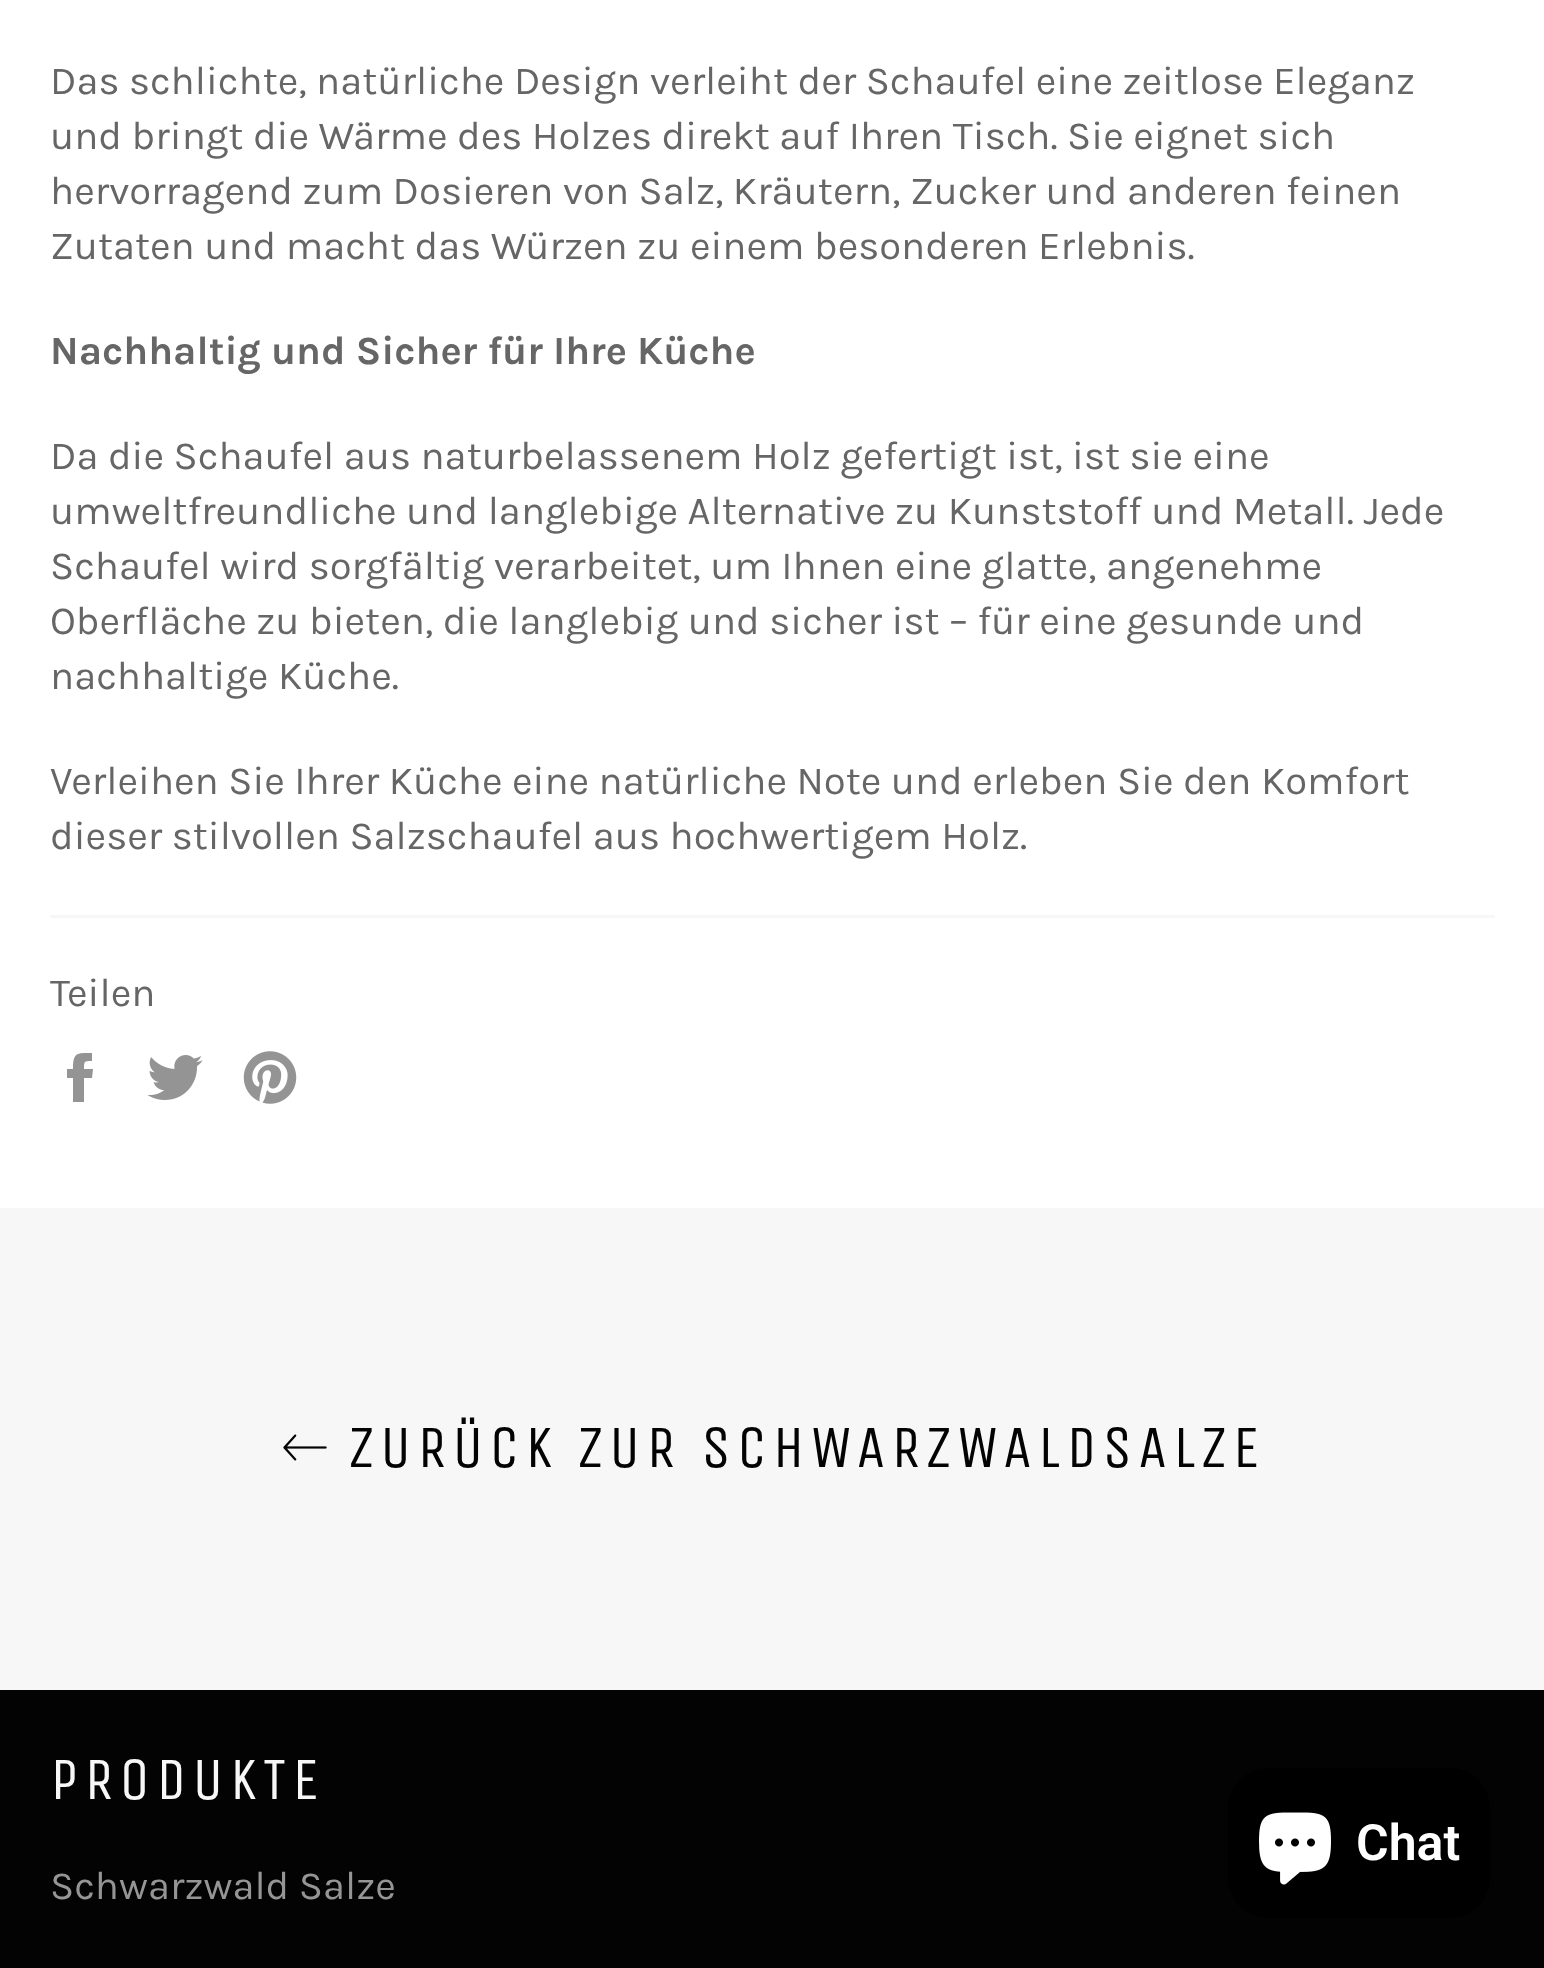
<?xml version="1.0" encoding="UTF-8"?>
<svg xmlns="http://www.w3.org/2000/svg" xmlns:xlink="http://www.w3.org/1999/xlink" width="1544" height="1968">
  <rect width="100%" height="100%" fill="#ffffff" />
  <rect x="50" y="915" width="1445" height="3" fill="#f7f7f7" />
  <path d="M 84 1069 c 0 -8 0 -8 8 -8 v -8 c -15 0 -19 -1 -19 16 h -6 v 9 h 6 v 24 h 11 v -24 h 8 l 1 -9 z" fill="#949494" />
  <image x="147" y="1055" width="56" height="45" xlink:href="image1.png" />
  <image x="243" y="1051" width="54" height="53" xlink:href="image2.png" />
  <rect y="1208" width="1544" height="482" fill="#f7f7f7" />
  <image x="283" y="1434" width="44" height="27" xlink:href="image3.png" />
  <rect y="1690" width="1544" height="278" fill="#030303" />
  <rect x="1228" y="1768" width="262" height="150" rx="40" fill="#000000" />
  <image x="1259" y="1812" width="72" height="73" xlink:href="image4.png" />
  <text x="50" y="94" style="font-family: Karla; font-size: 40px; fill: #666666">Das schlichte, natürliche Design verleiht der Schaufel eine zeitlose Eleganz</text>
  <text x="50" y="149" style="font-family: Karla; font-size: 40px; fill: #666666">und bringt die Wärme des Holzes direkt auf Ihren Tisch. Sie eignet sich</text>
  <text x="50" y="204" style="font-family: Karla; font-size: 40px; fill: #666666">hervorragend zum Dosieren von Salz, Kräutern, Zucker und anderen feinen</text>
  <text x="50" y="259" style="font-family: Karla; font-size: 40px; fill: #666666">Zutaten und macht das Würzen zu einem besonderen Erlebnis.</text>
  <text x="50" y="364" style="font-family: Karla; font-size: 40px; font-weight: bold; fill: #666666">Nachhaltig und Sicher für Ihre Küche</text>
  <text x="50" y="469" style="font-family: Karla; font-size: 40px; fill: #666666">Da die Schaufel aus naturbelassenem Holz gefertigt ist, ist sie eine</text>
  <text x="50" y="524" style="font-family: Karla; font-size: 40px; fill: #666666">umweltfreundliche und langlebige Alternative zu Kunststoff und Metall. Jede</text>
  <text x="50" y="579" style="font-family: Karla; font-size: 40px; fill: #666666">Schaufel wird sorgfältig verarbeitet, um Ihnen eine glatte, angenehme</text>
  <text x="50" y="634" style="font-family: Karla; font-size: 40px; fill: #666666">Oberfläche zu bieten, die langlebig und sicher ist – für eine gesunde und</text>
  <text x="50" y="689" style="font-family: Karla; font-size: 40px; fill: #666666">nachhaltige Küche.</text>
  <text x="50" y="794" style="font-family: Karla; font-size: 40px; fill: #666666">Verleihen Sie Ihrer Küche eine natürliche Note und erleben Sie den Komfort</text>
  <text x="50" y="849" style="font-family: Karla; font-size: 40px; fill: #666666">dieser stilvollen Salzschaufel aus hochwertigem Holz.</text>
  <text x="50" y="1006" style="font-family: Karla; font-size: 40px; fill: #666666">Teilen</text>
  <text x="349" y="1467" style="font-family: Unica One; font-size: 60px; letter-spacing: 6px; fill: #030303">ZURÜCK ZUR SCHWARZWALDSALZE</text>
  <text x="50" y="1799" style="font-family: Unica One; font-size: 60px; letter-spacing: 6px; fill: #f7f7f7">PRODUKTE</text>
  <text x="50" y="1899" style="font-family: Karla; font-size: 40px; fill: #959595">Schwarzwald Salze</text>
  <text x="1356" y="1860" style="font-family: Roboto; font-size: 50px; font-weight: 600; fill: #ffffff">Chat</text>
</svg>
